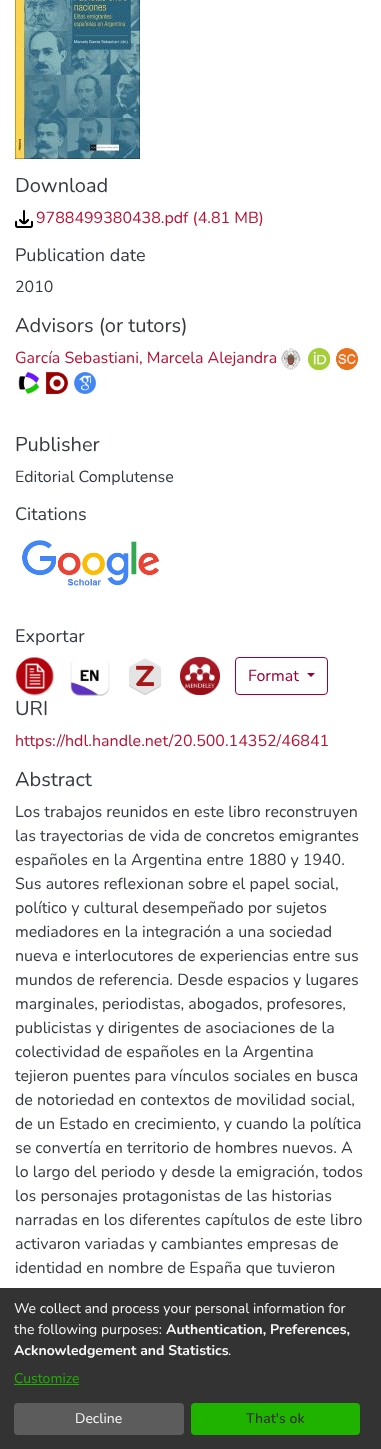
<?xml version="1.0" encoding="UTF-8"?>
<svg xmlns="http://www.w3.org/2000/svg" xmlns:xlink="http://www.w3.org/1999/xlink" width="381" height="1449">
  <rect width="100%" height="100%" fill="#ffffff" />
  <image x="15" y="0" width="125" height="159" xlink:href="image1.png" />
  <image x="15" y="210" width="18" height="18" xlink:href="image2.png" />
  <image x="281" y="348" width="20" height="22" xlink:href="image3.png" />
  <image x="308" y="348" width="22" height="22" xlink:href="image4.png" />
  <image x="336" y="348" width="22" height="22" xlink:href="image5.png" />
  <image x="18" y="372" width="22" height="22" xlink:href="image6.png" />
  <image x="46" y="372" width="22" height="22" xlink:href="image7.png" />
  <image x="74" y="372" width="22" height="22" xlink:href="image8.png" />
  <image x="22" y="540" width="138" height="46" xlink:href="image9.png" />
  <image x="15" y="656" width="40" height="40" xlink:href="image10.png" />
  <image x="70" y="658" width="40" height="38" xlink:href="image11.png" />
  <image x="129" y="658" width="33" height="37" xlink:href="image12.png" />
  <image x="180" y="657" width="40" height="38" xlink:href="image13.png" />
  <rect x="235.5" y="657.5" width="92" height="37" rx="3.5" fill="none" stroke="#990033" />
  <path d="M 307 673 h 8 l -4 4 z" fill="#990033" />
  <rect y="1288" width="381" height="161" fill="#333333" />
  <rect x="14" y="1384" width="65" height="1" fill="#1fb300" />
  <rect x="14" y="1403" width="170" height="32" rx="4" fill="#5c5c5c" />
  <rect x="191" y="1403" width="169" height="32" rx="4" fill="#1fb300" />
  <text x="15" y="192" style="font-family: Nunito; font-size: 20px; fill: #343a40">Download</text>
  <text x="36" y="223" style="font-family: Nunito; font-size: 16px; fill: #b71234">9788499380438.pdf (4.81 MB)</text>
  <text x="15" y="261" style="font-family: Nunito; font-size: 18px; fill: #343a40">Publication date</text>
  <text x="15" y="292" style="font-family: Nunito; font-size: 16px; fill: #343a40">2010</text>
  <text x="15" y="332" style="font-family: Nunito; font-size: 20px; fill: #343a40">Advisors (or tutors)</text>
  <text x="15" y="363" style="font-family: Nunito; font-size: 16px; fill: #b71234">García Sebastiani, Marcela Alejandra</text>
  <text x="15" y="451" style="font-family: Nunito; font-size: 20px; fill: #343a40">Publisher</text>
  <text x="15" y="482" style="font-family: Nunito; font-size: 16px; fill: #343a40">Editorial Complutense</text>
  <text x="15" y="520" style="font-family: Nunito; font-size: 18px; fill: #343a40">Citations</text>
  <text x="15" y="642" style="font-family: Nunito; font-size: 18px; fill: #343a40">Exportar</text>
  <text x="248" y="681" style="font-family: Nunito; font-size: 16px; fill: #990033">Format</text>
  <text x="15" y="715" style="font-family: Nunito; font-size: 20px; fill: #343a40">URI</text>
  <text x="15" y="746" style="font-family: Nunito; font-size: 16px; fill: #b71234">https://hdl.handle.net/20.500.14352/46841</text>
  <text x="15" y="786" style="font-family: Nunito; font-size: 20px; fill: #343a40">Abstract</text>
  <text x="15" y="817" style="font-family: Nunito; font-size: 16px; fill: #343a40">Los trabajos reunidos en este libro reconstruyen</text>
  <text x="15" y="841" style="font-family: Nunito; font-size: 16px; fill: #343a40">las trayectorias de vida de concretos emigrantes</text>
  <text x="15" y="865" style="font-family: Nunito; font-size: 16px; fill: #343a40">españoles en la Argentina entre 1880 y 1940.</text>
  <text x="15" y="889" style="font-family: Nunito; font-size: 16px; fill: #343a40">Sus autores reflexionan sobre el papel social,</text>
  <text x="15" y="913" style="font-family: Nunito; font-size: 16px; fill: #343a40">político y cultural desempeñado por sujetos</text>
  <text x="15" y="937" style="font-family: Nunito; font-size: 16px; fill: #343a40">mediadores en la integración a una sociedad</text>
  <text x="15" y="961" style="font-family: Nunito; font-size: 16px; fill: #343a40">nueva e interlocutores de experiencias entre sus</text>
  <text x="15" y="985" style="font-family: Nunito; font-size: 16px; fill: #343a40">mundos de referencia. Desde espacios y lugares</text>
  <text x="15" y="1009" style="font-family: Nunito; font-size: 16px; fill: #343a40">marginales, periodistas, abogados, profesores,</text>
  <text x="15" y="1033" style="font-family: Nunito; font-size: 16px; fill: #343a40">publicistas y dirigentes de asociaciones de la</text>
  <text x="15" y="1057" style="font-family: Nunito; font-size: 16px; fill: #343a40">colectividad de españoles en la Argentina</text>
  <text x="15" y="1081" style="font-family: Nunito; font-size: 16px; fill: #343a40">tejieron puentes para vínculos sociales en busca</text>
  <text x="15" y="1105" style="font-family: Nunito; font-size: 16px; fill: #343a40">de notoriedad en contextos de movilidad social,</text>
  <text x="15" y="1129" style="font-family: Nunito; font-size: 16px; fill: #343a40">de un Estado en crecimiento, y cuando la política</text>
  <text x="15" y="1153" style="font-family: Nunito; font-size: 16px; fill: #343a40">se convertía en territorio de hombres nuevos. A</text>
  <text x="15" y="1177" style="font-family: Nunito; font-size: 16px; fill: #343a40">lo largo del periodo y desde la emigración, todos</text>
  <text x="15" y="1201" style="font-family: Nunito; font-size: 16px; fill: #343a40">los personajes protagonistas de las historias</text>
  <text x="15" y="1225" style="font-family: Nunito; font-size: 16px; fill: #343a40">narradas en los diferentes capítulos de este libro</text>
  <text x="15" y="1249" style="font-family: Nunito; font-size: 16px; fill: #343a40">activaron variadas y cambiantes empresas de</text>
  <text x="15" y="1273" style="font-family: Nunito; font-size: 16px; fill: #343a40">identidad en nombre de España que tuvieron</text>
  <text x="14" y="1313" style="font-family: Nunito; font-size: 14px; fill: #fafafa">We collect and process your personal information for</text>
  <text x="14" y="1334" style="font-family: Nunito; font-size: 14px; fill: #fafafa">the following purposes:</text>
  <text x="166" y="1334" style="font-family: Nunito; font-size: 14px; font-weight: bold; fill: #fafafa">Authentication, Preferences,</text>
  <text x="14" y="1355" style="font-family: Nunito; font-size: 14px; font-weight: bold; fill: #fafafa">Acknowledgement and Statistics</text>
  <text x="228" y="1355" style="font-family: Nunito; font-size: 14px; fill: #fafafa">.</text>
  <text x="14" y="1383" style="font-family: Nunito; font-size: 14px; fill: #1fb300">Customize</text>
  <text x="75" y="1423" style="font-family: Nunito; font-size: 14px; fill: #fafafa">Decline</text>
  <text x="246" y="1423" style="font-family: Nunito; font-size: 14px; font-weight: 600; fill: #333333">That's ok</text>
</svg>
